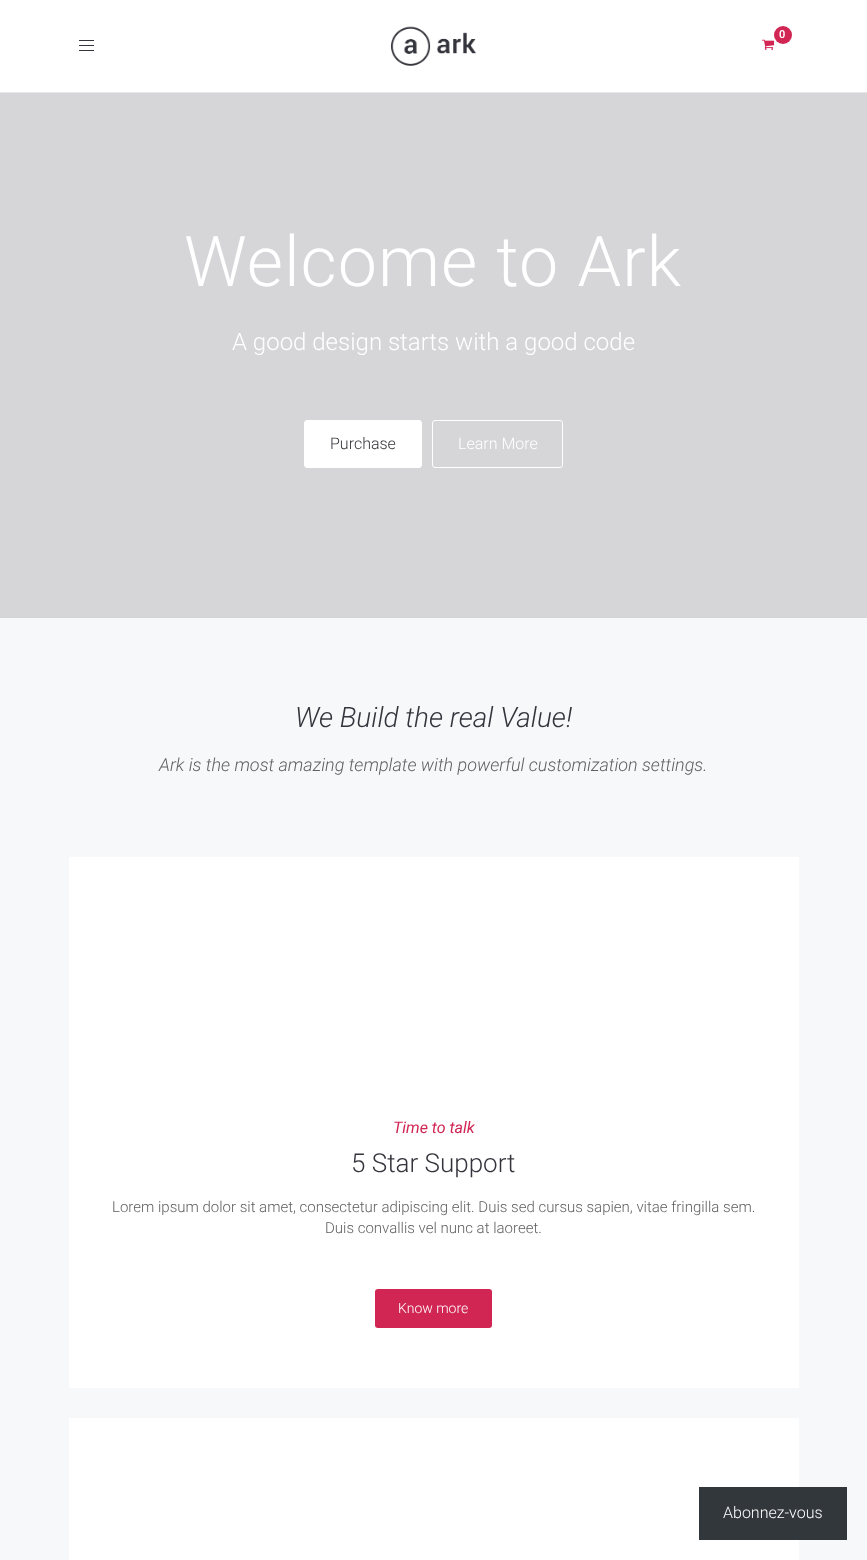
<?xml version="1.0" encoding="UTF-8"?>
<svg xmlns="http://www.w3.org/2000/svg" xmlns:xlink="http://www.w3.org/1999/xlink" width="867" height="1560">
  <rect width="100%" height="100%" fill="#ffffff" />
  <rect y="93" width="867" height="525" fill="#d6d6d8" />
  <rect y="92" width="867" height="1" fill="#e8e8ec" />
  <rect x="79" y="50" width="15" height="1" fill="#34343c" />
  <rect x="79" y="40" width="15" height="1" fill="#34343c" />
  <rect x="79" y="45" width="15" height="1" fill="#34343c" />
  <image x="391" y="26" width="85" height="40" xlink:href="image1.png" />
  <image x="762" y="39" width="13" height="11" xlink:href="image2.png" />
  <circle cx="783" cy="35" r="9" fill="#d12653" />
  <rect x="304.5" y="420.5" width="117" height="47" rx="2.5" fill="#ffffff" stroke="#ffffff" />
  <rect x="432.5" y="420.5" width="130" height="47" rx="2.5" fill="none" stroke="#ffffff" />
  <rect y="618" width="867" height="942" fill="#f7f8fa" />
  <rect x="69" y="857" width="730" height="531" fill="#ffffff" />
  <rect x="375" y="1289" width="117" height="39" rx="3" fill="#d12653" />
  <rect x="69" y="1418" width="730" height="142" fill="#ffffff" />
  <rect x="699" y="1487" width="148" height="53" fill="#32373c" />
  <text x="779" y="38" style="font-family: Roboto; font-size: 11px; font-weight: 600; fill: #ffffff">0</text>
  <text x="184" y="286" style="font-family: Roboto; font-size: 70px; font-weight: 300; letter-spacing: 1px; fill: #ffffff">Welcome to Ark</text>
  <text x="232" y="350" style="font-family: Roboto; font-size: 24px; font-weight: 300; fill: #ffffff">A good design starts with a good code</text>
  <text x="330" y="449" style="font-family: Roboto; font-size: 16px; font-weight: 300; fill: #34343c">Purchase</text>
  <text x="458" y="449" style="font-family: Roboto; font-size: 16px; font-weight: 300; fill: #ffffff">Learn More</text>
  <text x="295" y="727" style="font-family: Roboto; font-size: 28px; font-weight: 300; font-style: italic; fill: #34343c">We Build the real Value!</text>
  <text x="159" y="771" style="font-family: Roboto; font-size: 18px; font-weight: 300; font-style: italic; fill: #606060">Ark is the most amazing template with powerful customization settings.</text>
  <text x="393" y="1133" style="font-family: Roboto; font-size: 16px; font-style: italic; fill: #d12653">Time to talk</text>
  <text x="351" y="1172" style="font-family: Roboto; font-size: 26px; font-weight: 300; fill: #34343c">5 Star Support</text>
  <text x="112" y="1212" style="font-family: Roboto; font-size: 15px; font-weight: 300; fill: #606060">Lorem ipsum dolor sit amet, consectetur adipiscing elit. Duis sed cursus sapien, vitae fringilla sem.</text>
  <text x="325" y="1233" style="font-family: Roboto; font-size: 15px; font-weight: 300; fill: #606060">Duis convallis vel nunc at laoreet.</text>
  <text x="398" y="1313" style="font-family: Roboto; font-size: 14px; font-weight: 300; fill: #ffffff">Know more</text>
  <text x="723" y="1518" style="font-family: Roboto; font-size: 16px; font-weight: 300; fill: #ffffff">Abonnez-vous</text>
</svg>
